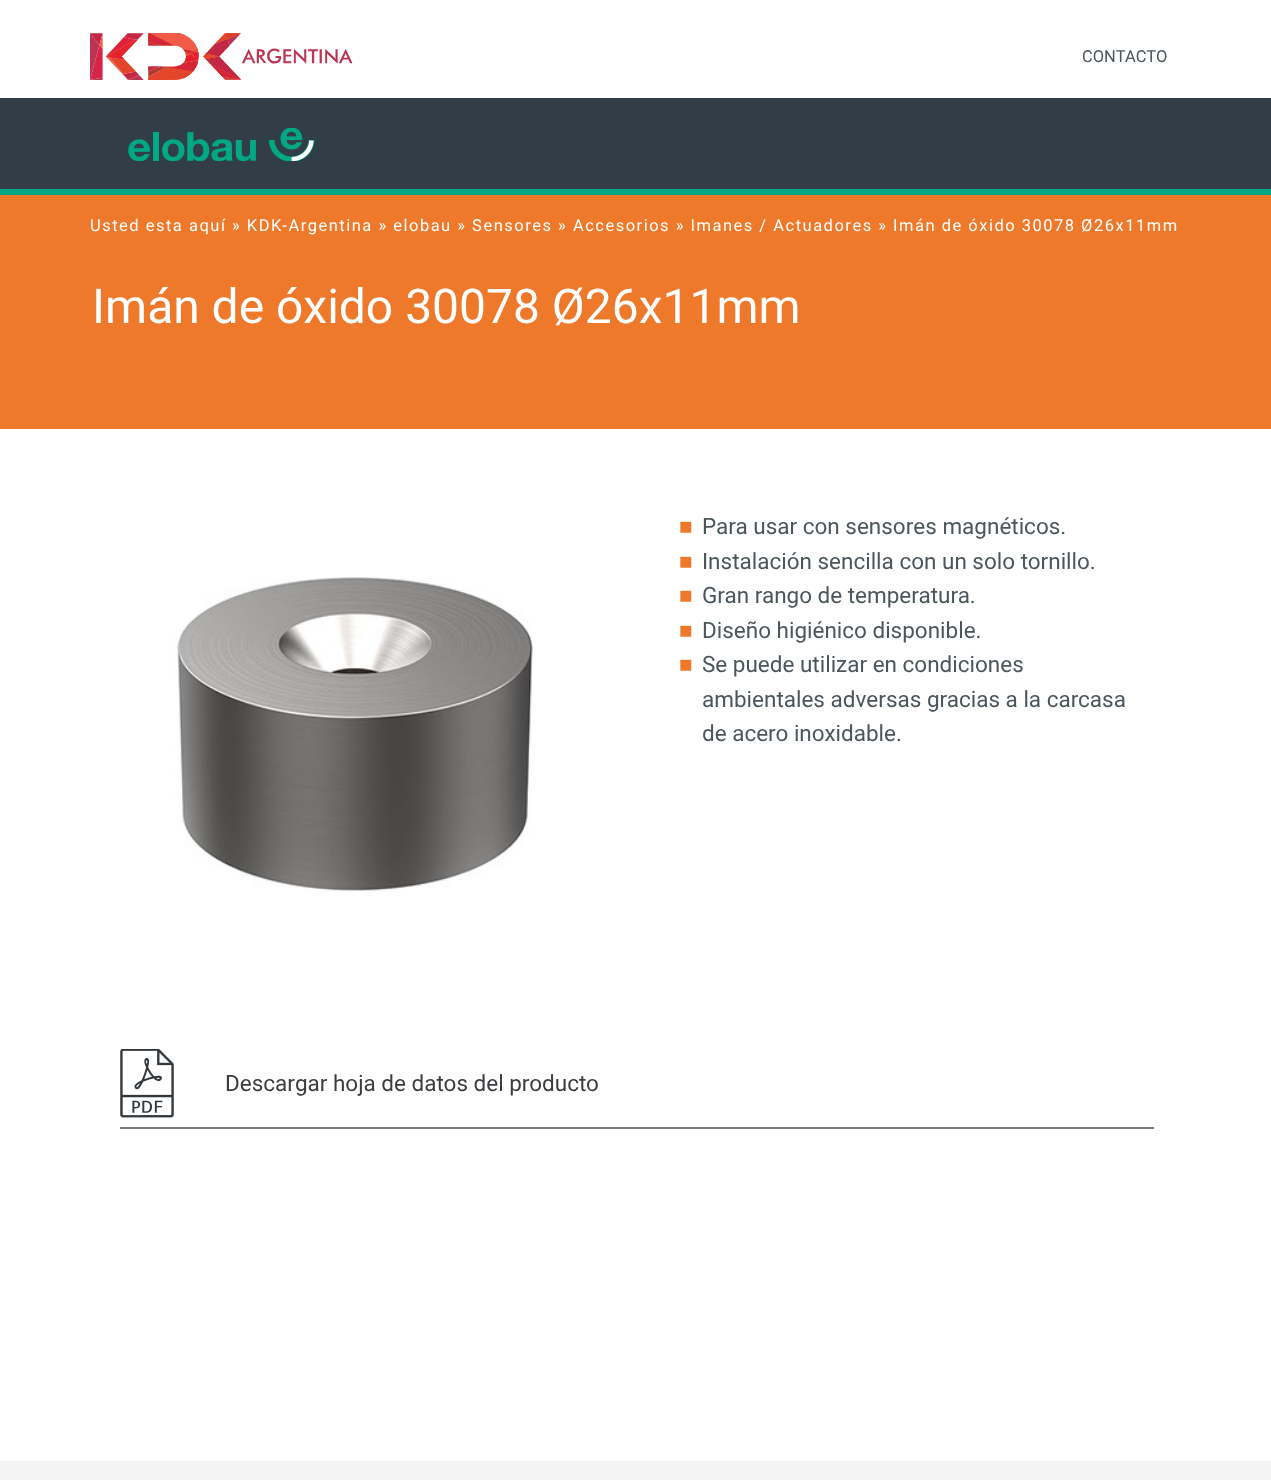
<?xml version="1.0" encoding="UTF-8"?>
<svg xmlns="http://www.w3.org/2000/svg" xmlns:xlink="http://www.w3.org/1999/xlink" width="1271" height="1480">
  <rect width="100%" height="100%" fill="#f4f4f4" />
  <rect width="1271" height="98" fill="#ffffff" />
  <rect y="98" width="1271" height="91" fill="#323e47" />
  <rect y="189" width="1271" height="6" fill="#00a881" />
  <image x="90" y="33" width="263" height="47" xlink:href="image1.png" />
  <image x="128" y="128" width="187" height="33" xlink:href="image2.png" />
  <rect y="195" width="1271" height="234" fill="#ef792b" />
  <rect y="429" width="1271" height="1032" fill="#ffffff" />
  <image x="175" y="577" width="358" height="315" xlink:href="image3.png" />
  <image x="120" y="1049" width="54" height="69" xlink:href="image4.png" />
  <rect x="120" y="1127" width="1034" height="2" fill="#7a7a7a" />
  <text x="1082" y="62" style="font-family: Roboto; font-size: 16.5px; fill: #4b565b">CONTACTO</text>
  <text x="90" y="231" style="font-family: Roboto; font-size: 16.5px; letter-spacing: 1.5px; fill: #ffffff">Usted esta aquí » KDK-Argentina » elobau » Sensores » Accesorios » Imanes / Actuadores » Imán de óxido 30078 Ø26x11mm</text>
  <text x="92" y="323" style="font-family: Roboto; font-size: 48px; fill: #ffffff">Imán de óxido 30078 Ø26x11mm</text>
  <text x="679" y="534" style="font-family: Liberation Sans; font-size: 22.5px; fill: #ef792b">■</text>
  <text x="702" y="534" style="font-family: Roboto; font-size: 22.5px; fill: #4b565b">Para usar con sensores magnéticos.</text>
  <text x="679" y="569" style="font-family: Liberation Sans; font-size: 22.5px; fill: #ef792b">■</text>
  <text x="702" y="569" style="font-family: Roboto; font-size: 22.5px; fill: #4b565b">Instalación sencilla con un solo tornillo.</text>
  <text x="679" y="603" style="font-family: Liberation Sans; font-size: 22.5px; fill: #ef792b">■</text>
  <text x="702" y="603" style="font-family: Roboto; font-size: 22.5px; fill: #4b565b">Gran rango de temperatura.</text>
  <text x="679" y="638" style="font-family: Liberation Sans; font-size: 22.5px; fill: #ef792b">■</text>
  <text x="702" y="638" style="font-family: Roboto; font-size: 22.5px; fill: #4b565b">Diseño higiénico disponible.</text>
  <text x="679" y="672" style="font-family: Liberation Sans; font-size: 22.5px; fill: #ef792b">■</text>
  <text x="702" y="672" style="font-family: Roboto; font-size: 22.5px; fill: #4b565b">Se puede utilizar en condiciones</text>
  <text x="702" y="707" style="font-family: Roboto; font-size: 22.5px; fill: #4b565b">ambientales adversas gracias a la carcasa</text>
  <text x="702" y="741" style="font-family: Roboto; font-size: 22.5px; fill: #4b565b">de acero inoxidable.</text>
  <text x="225" y="1091" style="font-family: Roboto; font-size: 22.5px; fill: #3c3d40">Descargar hoja de datos del producto</text>
</svg>
